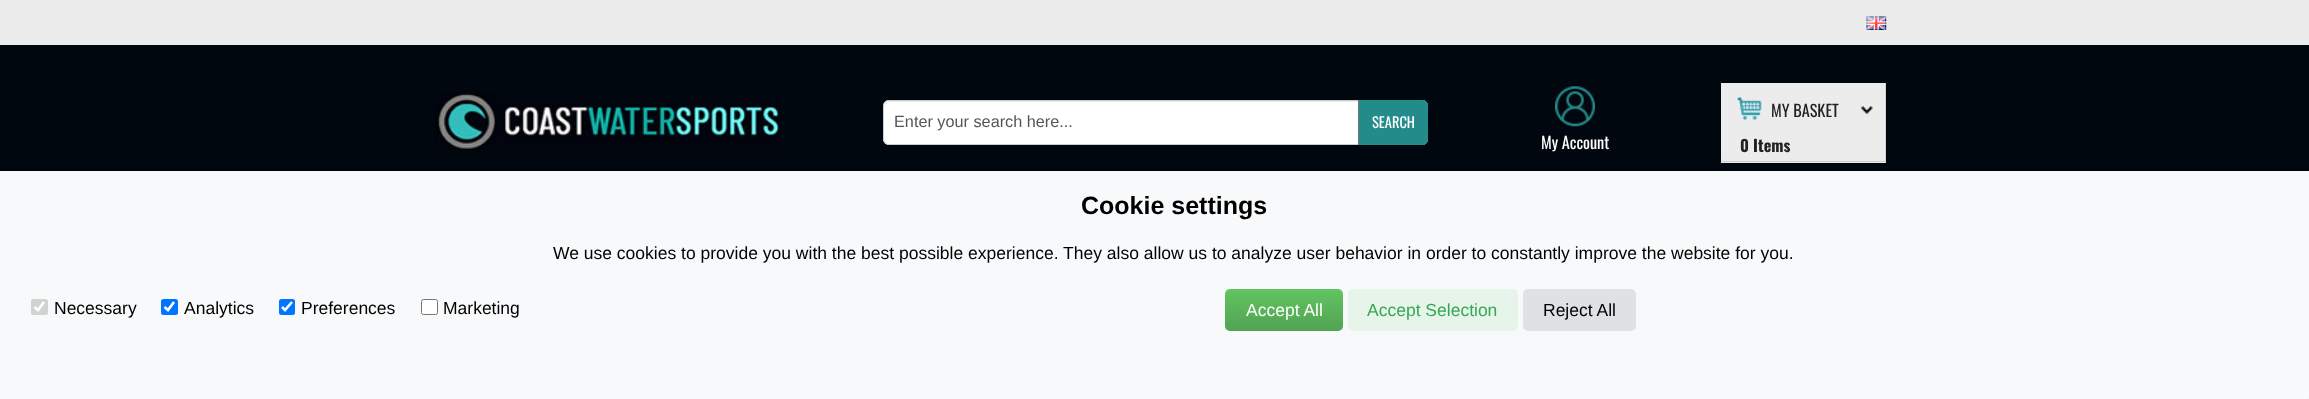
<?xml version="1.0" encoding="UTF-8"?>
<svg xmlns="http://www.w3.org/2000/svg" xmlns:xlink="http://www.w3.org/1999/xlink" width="2309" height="399">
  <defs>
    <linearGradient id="g1" gradientUnits="userSpaceOnUse" x1="1284" y1="289" x2="1284" y2="331"><stop offset="0" stop-color="#62c462" /><stop offset="1" stop-color="#51a351" /></linearGradient>
  </defs>
  <rect width="100%" height="100%" fill="#ececec" />
  <image x="1866" y="16" width="21" height="14" xlink:href="image1.png" />
  <rect y="45" width="2309" height="126" fill="#01070e" />
  <image x="434" y="93" width="346" height="57" xlink:href="image2.png" />
  <rect x="883" y="100" width="545" height="45" rx="6" fill="#ffffff" />
  <path d="M 889 102 h 532 c 3 0 5 3 5 6 c 0 -3 -1 -7 -5 -7 h -532 c -4 0 -5 4 -5 7 c 0 -3 2 -6 5 -6 z" fill="#ececec" />
  <rect x="883.5" y="100.5" width="544" height="44" rx="5.5" fill="none" stroke="#cccccc" />
  <path d="M 1359 100 h 63 c 3.5 0 6 2.5 6 6 v 33 c 0 3.5 -2.5 6 -6 6 h -63 z" fill="#238b8a" />
  <rect x="1358" y="100" width="1" height="45" fill="#777777" />
  <image x="1555" y="86" width="40" height="41" xlink:href="image3.png" />
  <rect x="1721" y="83" width="164" height="80" fill="#ececec" />
  <image x="1737" y="97" width="25" height="24" xlink:href="image4.png" />
  <rect x="1885" y="83" width="1" height="80" fill="#d2d2d2" />
  <rect x="1721" y="161" width="165" height="1" fill="#d2d2d2" />
  <image x="1861" y="106" width="12" height="8" xlink:href="image5.png" />
  <rect y="169" width="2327" height="229" fill="#000000" fill-opacity="0.1" filter="blur(6px)" />
  <rect y="171" width="2309" height="228" fill="#f8f9fa" />
  <rect x="31" y="299" width="17" height="16" rx="2.5" fill="#d1d2d2" />
  <path d="M 34.5 307 l 3.5 3 l 6 -8" fill="none" stroke="#ffffff" stroke-width="2.6" />
  <rect x="161" y="299" width="17" height="16" rx="2.5" fill="#0075ff" />
  <path d="M 164.5 307 l 3.5 3 l 6 -8" fill="none" stroke="#ffffff" stroke-width="2.6" />
  <rect x="279" y="299" width="16" height="16" rx="2.5" fill="#0075ff" />
  <path d="M 282 307 l 3 3 l 7 -8" fill="none" stroke="#ffffff" stroke-width="2.6" />
  <rect x="421.5" y="299.5" width="16" height="15" rx="2" fill="#ffffff" stroke="#767676" />
  <rect x="1225" y="289" width="118" height="42" rx="5" fill="url(#g1)" />
  <rect x="1348" y="289" width="170" height="42" rx="5" fill="#e6f4ea" />
  <rect x="1523" y="289" width="113" height="42" rx="5" fill="#dfe1e5" />
  <rect x="2308" y="398" width="1" height="1" fill="#f5f5f5" />
  <text x="894" y="127" style="font-family: Liberation Sans; font-size: 16.25px; fill: #555555">Enter your search here...</text>
  <text x="1372" y="128" style="font-family: Oswald; font-size: 14.5px; fill: #ffffff">SEARCH</text>
  <text x="1541" y="149" style="font-family: Oswald; font-size: 16.25px; fill: #ffffff">My Account</text>
  <text x="1771" y="117" style="font-family: Oswald; font-size: 16.25px; fill: #222222">MY BASKET</text>
  <text x="1740" y="152" style="font-family: Oswald; font-size: 16.25px; font-weight: bold; fill: #222222">0 Items</text>
  <text x="1081" y="214" style="font-family: Liberation Sans; font-size: 25px; font-weight: bold; fill: #000000">Cookie settings</text>
  <text x="553" y="259" style="font-family: Liberation Sans; font-size: 17.5px; fill: #000000">We use cookies to provide you with the best possible experience. They also allow us to analyze user behavior in order to constantly improve the website for you.</text>
  <text x="54" y="314" style="font-family: Liberation Sans; font-size: 17.5px; fill: #000000">Necessary</text>
  <text x="184" y="314" style="font-family: Liberation Sans; font-size: 17.5px; fill: #000000">Analytics</text>
  <text x="301" y="314" style="font-family: Liberation Sans; font-size: 17.5px; fill: #000000">Preferences</text>
  <text x="443" y="314" style="font-family: Liberation Sans; font-size: 17.5px; fill: #000000">Marketing</text>
  <text x="1246" y="316" style="font-family: Liberation Sans; font-size: 17.5px; fill: #ffffff">Accept All</text>
  <text x="1367" y="316" style="font-family: Liberation Sans; font-size: 17.5px; fill: #34a853">Accept Selection</text>
  <text x="1543" y="316" style="font-family: Liberation Sans; font-size: 17.5px; fill: #000000">Reject All</text>
</svg>
